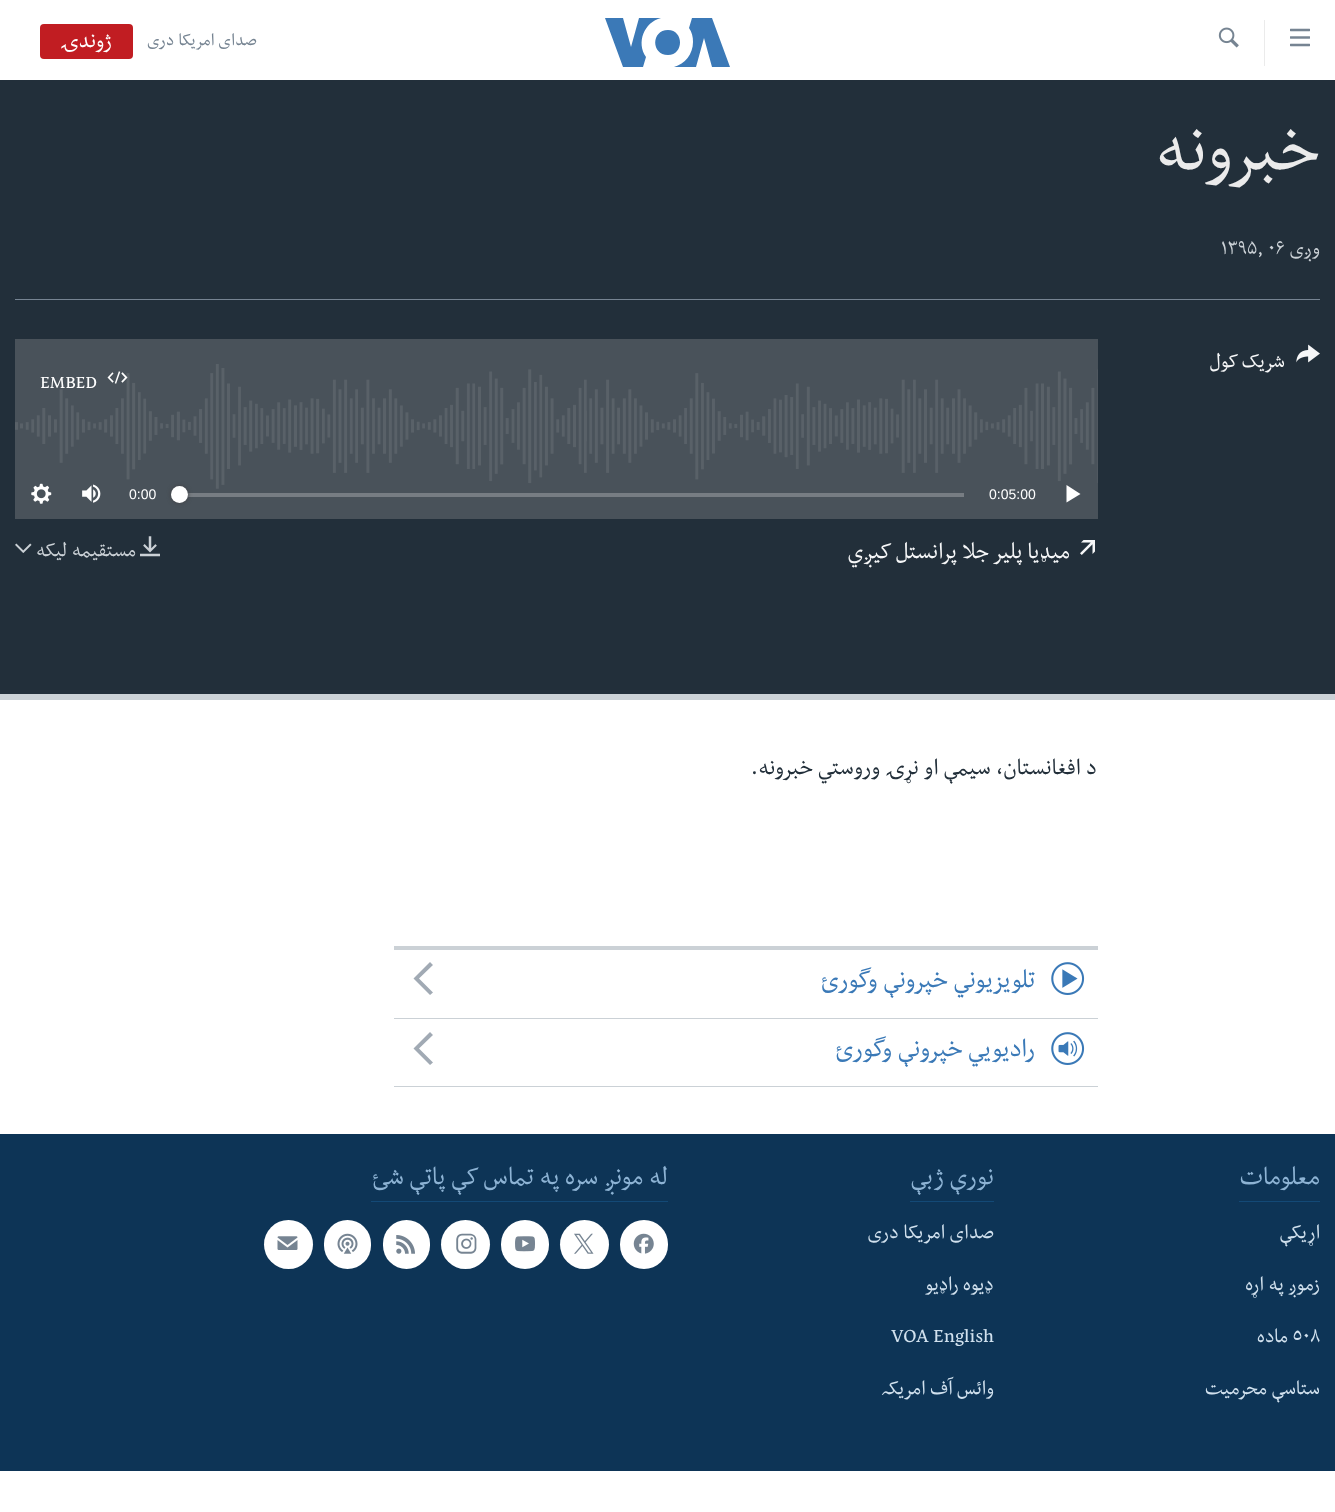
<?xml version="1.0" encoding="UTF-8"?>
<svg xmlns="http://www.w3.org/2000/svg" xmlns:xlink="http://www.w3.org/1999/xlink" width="1335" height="1512">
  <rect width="100%" height="100%" fill="#ffffff" />
  <image x="1290" y="28" width="20" height="19" xlink:href="image1.png" />
  <rect x="1264" y="20" width="1" height="46" fill="#ebebeb" />
  <image x="1218" y="27" width="21" height="21" xlink:href="image2.png" />
  <path d="M 646 57 l -3 10 h -20 l -18 -49 h 18 l 8 29 l 8 -29 h 22 c -17 4 -25 25 -15 39 z m 22 -27 c -17 0 -17 25 0 25 c 16 0 16 -25 0 -25 z m 25 12 c 0 12 -8 22 -19 25 h 22 l 8 -29 l 8 29 h 18 l -18 -49 h -20 l -3 10 c 3 4 4 9 4 14 z" fill="#3b79b7" />
  <rect x="40" y="24" width="93" height="35" rx="4" fill="#c11d22" />
  <rect y="80" width="1335" height="614" fill="#222f3a" />
  <rect y="694" width="1335" height="6" fill="#cbd1d6" />
  <rect x="15" y="299" width="1305" height="1" fill="#768492" />
  <image x="1296" y="344" width="24" height="19" xlink:href="image3.png" />
  <rect x="15" y="339" width="1083" height="180" fill="#49525a" />
  <image x="15" y="364" width="1083" height="125" xlink:href="image4.png" />
  <image x="107" y="371" width="21" height="13" xlink:href="image5.png" />
  <path d="M 1066.5 502.5 l 14 -8.5 l -14 -9 z" fill="#ffffff" />
  <rect x="180" y="493" width="784" height="4" fill="#777d83" />
  <rect x="171" y="486" width="17" height="17" rx="8.5" fill="#414144" filter="blur(2px)" />
  <circle cx="179.5" cy="494.5" r="8.5" fill="#ffffff" />
  <image x="82" y="484" width="19" height="19" xlink:href="image6.png" />
  <image x="31" y="483" width="21" height="21" xlink:href="image7.png" />
  <image x="1080" y="540" width="15" height="15" xlink:href="image8.png" />
  <image x="140" y="536" width="20" height="21" xlink:href="image9.png" />
  <image x="15" y="543" width="17" height="10" xlink:href="image10.png" />
  <rect x="394" y="946" width="704" height="4" fill="#cbd1d6" />
  <rect x="394" y="1018" width="704" height="1" fill="#cbd1d6" />
  <image x="1051" y="962" width="34" height="33" xlink:href="image11.png" />
  <path d="M 430 962 l -16.5 16.5 l 16.5 16.5 l 3 -2.5 l -14 -14 l 14 -13.5 z" fill="#a1aab4" />
  <rect x="394" y="1086" width="704" height="1" fill="#cbd1d6" />
  <image x="1051" y="1032" width="34" height="33" xlink:href="image12.png" />
  <path d="M 430 1032 l -16.5 16.5 l 16.5 16.5 l 3 -2.5 l -14 -14 l 14 -13.5 z" fill="#a1aab4" />
  <rect y="1134" width="1335" height="337" fill="#0d3456" />
  <rect x="1239" y="1201" width="81" height="1" fill="#134976" />
  <rect x="910" y="1201" width="84" height="1" fill="#134976" />
  <rect x="371" y="1201" width="297" height="1" fill="#134976" />
  <rect x="620" y="1220" width="48" height="49" rx="24" fill="#ffffff" />
  <image x="633" y="1233" width="21" height="21" xlink:href="image13.png" />
  <circle cx="584.5" cy="1244.5" r="24.5" fill="#ffffff" />
  <image x="574" y="1233" width="20" height="21" xlink:href="image14.png" />
  <rect x="501" y="1220" width="48" height="49" rx="24" fill="#ffffff" />
  <image x="515" y="1236" width="20" height="16" xlink:href="image15.png" />
  <circle cx="465.5" cy="1244.5" r="24.5" fill="#ffffff" />
  <image x="456" y="1233" width="21" height="21" xlink:href="image16.png" />
  <rect x="383" y="1220" width="47" height="49" rx="23.5" fill="#ffffff" />
  <image x="396" y="1235" width="19" height="19" xlink:href="image17.png" />
  <rect x="324" y="1220" width="47" height="49" rx="23.5" fill="#ffffff" />
  <image x="337" y="1233" width="21" height="21" xlink:href="image18.png" />
  <circle cx="288.5" cy="1244.5" r="24.5" fill="#ffffff" />
  <image x="277" y="1236" width="21" height="14" xlink:href="image19.png" />
  <text x="257" y="45" style="font-family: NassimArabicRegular; font-size: 20px; direction: rtl; fill: #768492">صدای امریکا دری</text>
  <text x="112" y="47" style="font-family: NassimArabicRegular; font-size: 25px; direction: rtl; fill: #ffffff">ژوندۍ</text>
  <text x="1320" y="169" style="font-family: NassimArabicRegular; font-size: 79px; direction: rtl; fill: #ebebeb">خبرونه</text>
  <text x="1320" y="254" style="font-family: NassimArabicRegular; font-size: 23px; direction: rtl; fill: #cbd1d6">وږی</text>
  <text x="1221" y="254" style="font-family: NassimArabicRegular; font-size: 23px; fill: #cbd1d6">۱۳۹۵, ۰۶</text>
  <text x="1285" y="367" style="font-family: NassimArabicRegular; font-size: 23px; direction: rtl; fill: #f6f7f8">شریک کول</text>
  <text x="40" y="388" style="font-family: NassimArabicRegular; font-size: 21px; fill: #ffffff">EMBED</text>
  <text x="989" y="499" style="font-family: Liberation Sans; font-size: 14px; fill: #ffffff">0:05:00</text>
  <text x="129" y="499" style="font-family: Liberation Sans; font-size: 14px; fill: #ffffff">0:00</text>
  <text x="1070" y="558" style="font-family: NassimArabicRegular; font-size: 26.25px; direction: rtl; fill: #f6f7f8">میډيا پلیر جلا پرانستل کیږي</text>
  <text x="136" y="556" style="font-family: NassimArabicRegular; font-size: 23px; direction: rtl; fill: #cbd1d6">مستقیمه لیکه</text>
  <text x="1097" y="774" style="font-family: NassimArabicRegular; font-size: 26.25px; direction: rtl; fill: #222f3a">د افغانستان، سیمې او نړۍ وروستي خبرونه.</text>
  <text x="1035" y="987" style="font-family: NassimArabicRegular; font-size: 29.5px; direction: rtl; fill: #3a79b7">تلویزیوني خپرونې وگورئ</text>
  <text x="1035" y="1056" style="font-family: NassimArabicRegular; font-size: 29.5px; direction: rtl; fill: #3a79b7">رادیویي خپرونې وگورئ</text>
  <text x="1320" y="1184" style="font-family: NassimArabicRegular; font-size: 29.5px; direction: rtl; fill: #8db3d4">معلومات</text>
  <text x="1320" y="1238" style="font-family: NassimArabicRegular; font-size: 23px; direction: rtl; fill: #d1e1ee">اړیکې</text>
  <text x="1320" y="1290" style="font-family: NassimArabicRegular; font-size: 23px; direction: rtl; fill: #d1e1ee">زموږ په اړه</text>
  <text x="1292" y="1342" style="font-family: NassimArabicRegular; font-size: 23px; fill: #d1e1ee">٥٠٨</text>
  <text x="1288" y="1342" style="font-family: NassimArabicRegular; font-size: 23px; direction: rtl; fill: #d1e1ee">ماده</text>
  <text x="1320" y="1394" style="font-family: NassimArabicRegular; font-size: 23px; direction: rtl; fill: #d1e1ee">ستاسې محرمیت</text>
  <text x="994" y="1184" style="font-family: NassimArabicRegular; font-size: 29.5px; direction: rtl; fill: #8db3d4">نورې ژبې</text>
  <text x="994" y="1238" style="font-family: NassimArabicRegular; font-size: 23px; direction: rtl; fill: #d1e1ee">صدای امریکا دری</text>
  <text x="994" y="1290" style="font-family: NassimArabicRegular; font-size: 23px; direction: rtl; fill: #d1e1ee">ډیوه راډیو</text>
  <text x="891" y="1342" style="font-family: NassimArabicRegular; font-size: 23px; fill: #d1e1ee">VOA English</text>
  <text x="994" y="1394" style="font-family: NassimArabicRegular; font-size: 23px; direction: rtl; fill: #d1e1ee">وائس آف امریکہ</text>
  <text x="668" y="1184" style="font-family: NassimArabicRegular; font-size: 29.5px; direction: rtl; fill: #8db3d4">له مونږ سره په تماس کې پاتې شئ</text>
</svg>
